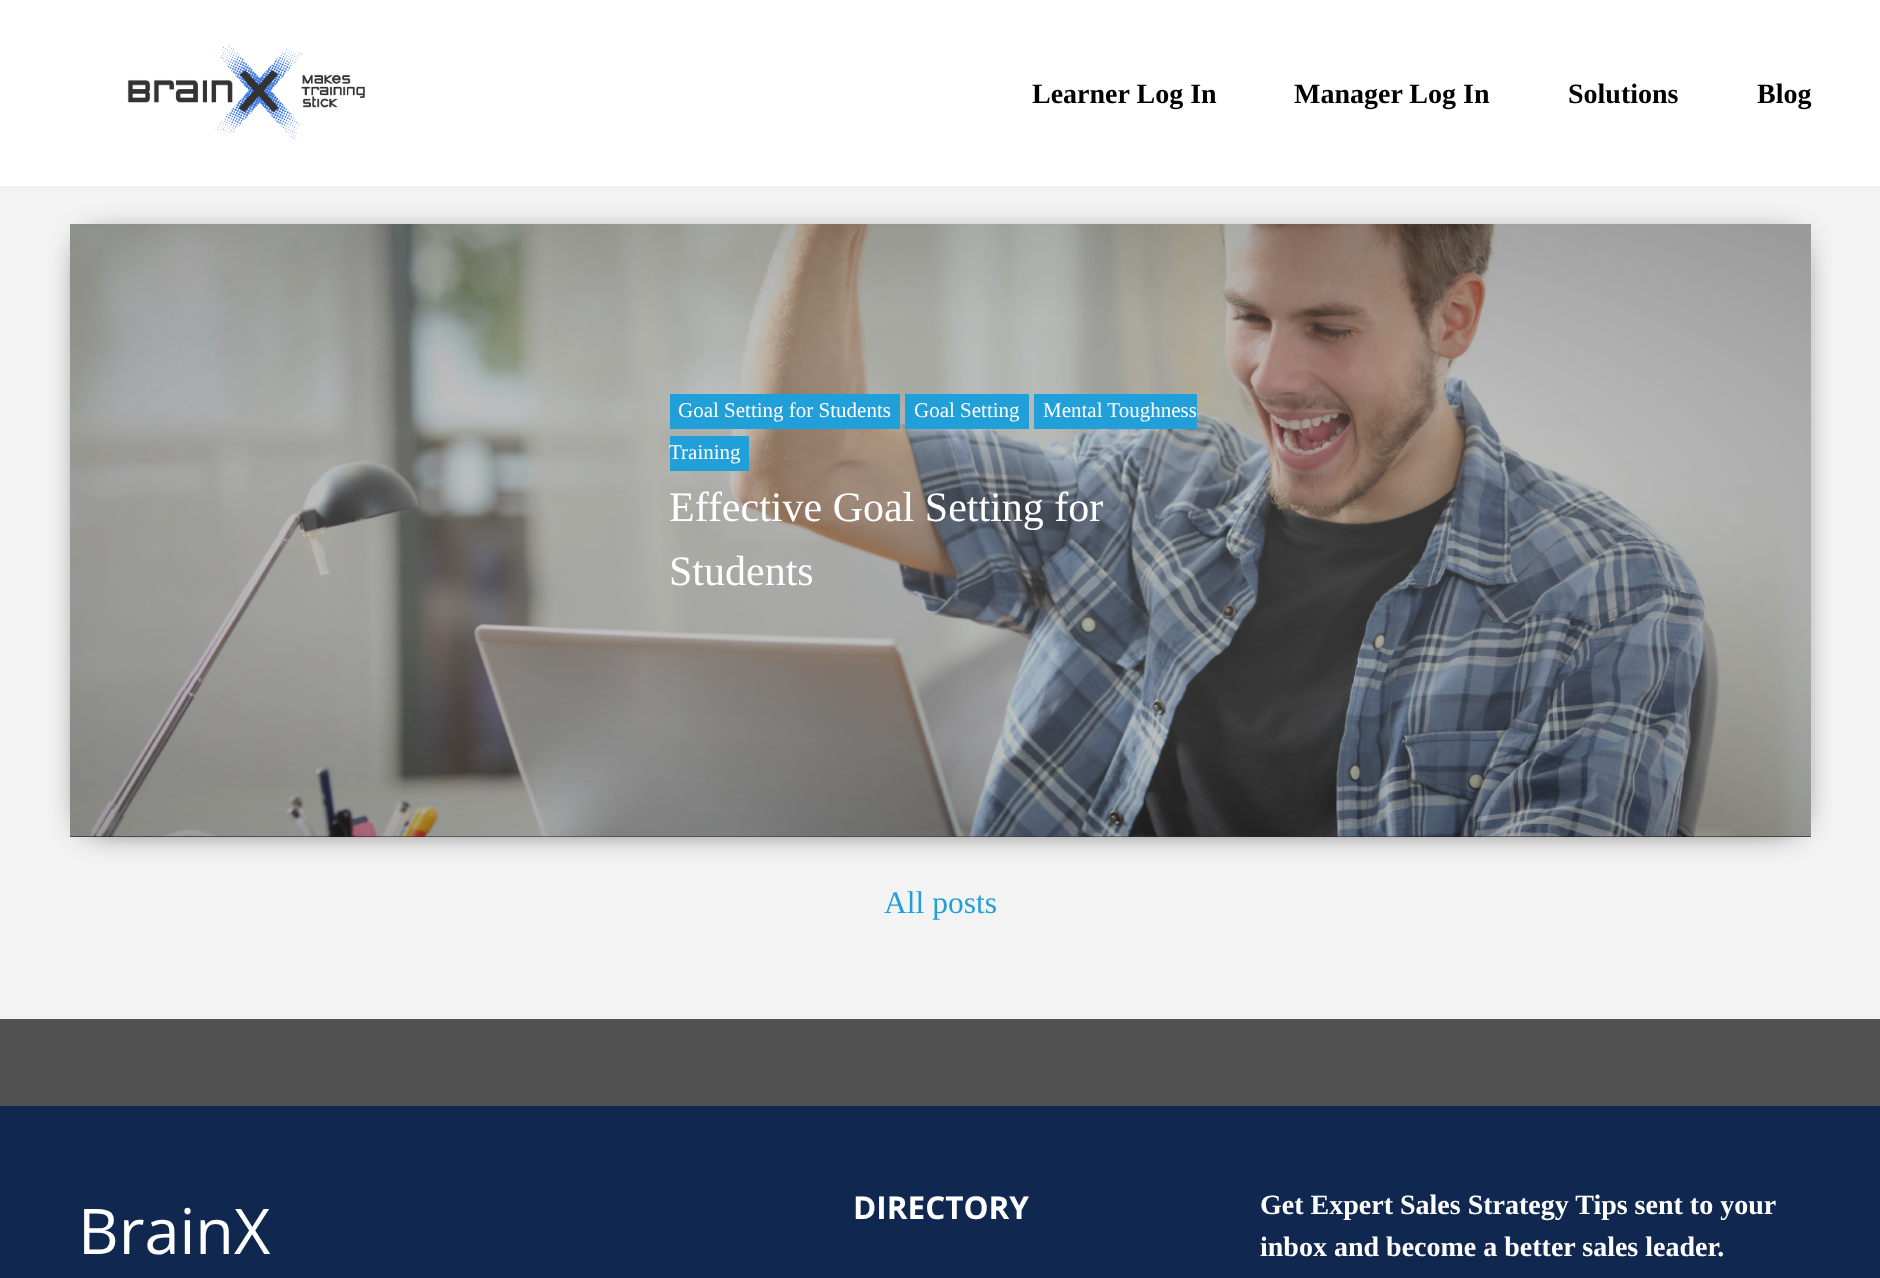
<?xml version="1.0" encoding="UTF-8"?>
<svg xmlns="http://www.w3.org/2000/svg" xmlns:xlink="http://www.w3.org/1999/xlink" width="1880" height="1278">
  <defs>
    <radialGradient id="g1" gradientUnits="userSpaceOnUse" cx="0" cy="0" r="1" gradientTransform="matrix(1231 0 0 433 941 530)"><stop offset="0" stop-color="#666666" /><stop offset="0.5" stop-color="#5a5a5a" /><stop offset="1" stop-color="#000000" /></radialGradient>
  </defs>
  <rect width="100%" height="100%" fill="#ffffff" />
  <image x="127" y="43" width="238" height="96" xlink:href="image1.png" />
  <rect y="186" width="1880" height="833" fill="#f3f3f3" />
  <rect x="88" y="245" width="1706" height="578" fill="#000000" filter="blur(17.5px)" />
  <rect x="70" y="224" width="1741" height="613" fill="url(#g1)" />
  <image x="70" y="224" width="1742" height="613" xlink:href="image2.png" />
  <rect x="670" y="394" width="230" height="35" fill="#209fd9" />
  <rect x="905" y="394" width="124" height="35" fill="#209fd9" />
  <rect x="1034" y="394" width="163" height="35" fill="#209fd9" />
  <rect x="670" y="436" width="79" height="35" fill="#209fd9" />
  <rect y="1019" width="1880" height="87" fill="#515151" />
  <rect y="1106" width="1880" height="172" fill="#10284f" />
  <text x="1032" y="103" style="font-family: Liberation Serif; font-size: 28px; font-weight: bold; fill: #010101">Learner Log In</text>
  <text x="1294" y="103" style="font-family: Liberation Serif; font-size: 28px; font-weight: bold; fill: #010101">Manager Log In</text>
  <text x="1568" y="103" style="font-family: Liberation Serif; font-size: 28px; font-weight: bold; fill: #010101">Solutions</text>
  <text x="1757" y="103" style="font-family: Liberation Serif; font-size: 28px; font-weight: bold; fill: #010101">Blog</text>
  <text x="678" y="417" style="font-family: Liberation Serif; font-size: 21px; fill: #ffffff">Goal Setting for Students</text>
  <text x="914" y="417" style="font-family: Liberation Serif; font-size: 21px; fill: #ffffff">Goal Setting</text>
  <text x="1043" y="417" style="font-family: Liberation Serif; font-size: 21px; fill: #ffffff">Mental Toughness</text>
  <text x="669" y="459" style="font-family: Liberation Serif; font-size: 21px; fill: #ffffff">Training</text>
  <text x="669" y="521" style="font-family: Liberation Serif; font-size: 42px; fill: #ffffff">Effective Goal Setting for</text>
  <text x="669" y="585" style="font-family: Liberation Serif; font-size: 42px; fill: #ffffff">Students</text>
  <text x="884" y="913" style="font-family: Liberation Serif; font-size: 31.5px; fill: #209fd9">All posts</text>
  <text x="78" y="1254" style="font-family: Open Sans; font-size: 63px; fill: #ffffff">BrainX</text>
  <text x="853" y="1219" style="font-family: Open Sans; font-size: 31.5px; font-weight: bold; fill: #ffffff">DIRECTORY</text>
  <text x="1260" y="1214" style="font-family: Liberation Serif; font-size: 28px; font-weight: bold; fill: #ffffff">Get Expert Sales Strategy Tips sent to your</text>
  <text x="1260" y="1256" style="font-family: Liberation Serif; font-size: 28px; font-weight: bold; fill: #ffffff">inbox and become a better sales leader.</text>
</svg>
